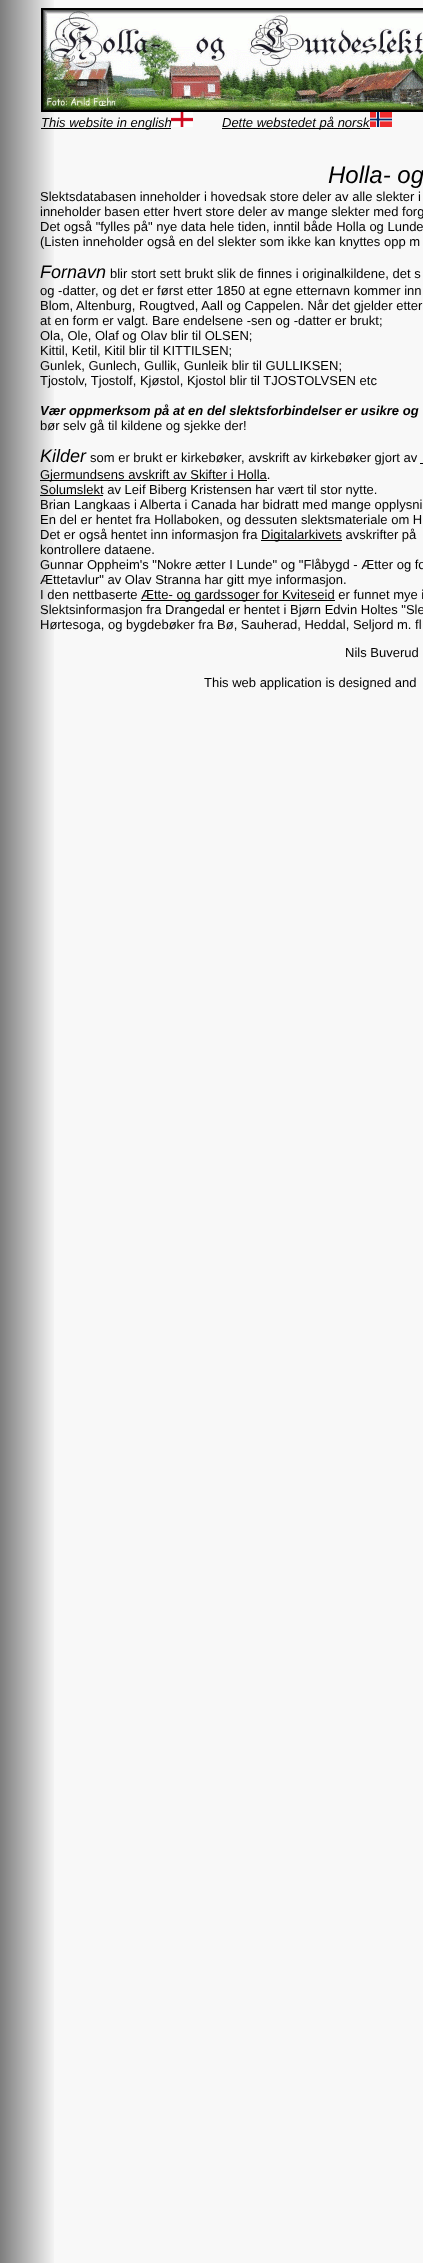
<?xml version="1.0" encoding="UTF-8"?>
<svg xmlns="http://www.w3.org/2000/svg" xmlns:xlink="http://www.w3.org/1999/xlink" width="423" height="2263">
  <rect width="100%" height="100%" fill="#f8f8f8" />
  <image x="0" y="0" width="54" height="2263" xlink:href="image1.png" />
  <rect x="42" y="9" width="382" height="102" fill="none" stroke="#000000" stroke-width="2" />
  <image x="43" y="10" width="380" height="100" xlink:href="image2.png" />
  <rect x="41" y="128" width="130" height="1" fill="#000000" />
  <image x="171" y="112" width="22" height="15" xlink:href="image3.png" />
  <rect x="222" y="128" width="148" height="1" fill="#000000" />
  <rect x="420" y="463" width="3" height="1" fill="#000000" />
  <rect x="40" y="480" width="227" height="1" fill="#000000" />
  <rect x="40" y="495" width="63" height="1" fill="#000000" />
  <rect x="261" y="540" width="81" height="1" fill="#000000" />
  <rect x="141" y="600" width="194" height="1" fill="#000000" />
  <text x="41" y="127" style="font-family: Liberation Sans; font-size: 13px; font-style: italic; fill: #000000">This website in english</text>
  <text x="222" y="127" style="font-family: Liberation Sans; font-size: 13px; font-style: italic; fill: #000000">Dette webstedet på norsk</text>
  <image x="370" y="112" width="22" height="15" xlink:href="image4.png" />
  <text x="328" y="183" style="font-family: Liberation Sans; font-size: 24px; font-style: italic; fill: #000000">Holla- og</text>
  <text x="40" y="201" style="font-family: Liberation Sans; font-size: 13px; fill: #000000">Slektsdatabasen inneholder i hovedsak store deler av alle slekter i</text>
  <text x="40" y="216" style="font-family: Liberation Sans; font-size: 13px; fill: #000000">inneholder basen etter hvert store deler av mange slekter med forg</text>
  <text x="40" y="231" style="font-family: Liberation Sans; font-size: 13px; fill: #000000">Det også "fylles på" nye data hele tiden, inntil både Holla og Lunde</text>
  <text x="40" y="246" style="font-family: Liberation Sans; font-size: 13px; fill: #000000">(Listen inneholder også en del slekter som ikke kan knyttes opp m</text>
  <text x="40" y="278" style="font-family: Liberation Sans; font-size: 18px; font-style: italic; fill: #000000">Fornavn</text>
  <text x="110" y="278" style="font-family: Liberation Sans; font-size: 13px; fill: #000000">blir stort sett brukt slik de finnes i originalkildene, det s</text>
  <text x="40" y="295" style="font-family: Liberation Sans; font-size: 13px; fill: #000000">og -datter, og det er først etter 1850 at egne etternavn kommer inn</text>
  <text x="40" y="310" style="font-family: Liberation Sans; font-size: 13px; fill: #000000">Blom, Altenburg, Rougtved, Aall og Cappelen. Når det gjelder etter</text>
  <text x="40" y="325" style="font-family: Liberation Sans; font-size: 13px; fill: #000000">at en form er valgt. Bare endelsene -sen og -datter er brukt;</text>
  <text x="40" y="340" style="font-family: Liberation Sans; font-size: 13px; fill: #000000">Ola, Ole, Olaf og Olav blir til OLSEN;</text>
  <text x="40" y="355" style="font-family: Liberation Sans; font-size: 13px; fill: #000000">Kittil, Ketil, Kitil blir til KITTILSEN;</text>
  <text x="40" y="370" style="font-family: Liberation Sans; font-size: 13px; fill: #000000">Gunlek, Gunlech, Gullik, Gunleik blir til GULLIKSEN;</text>
  <text x="40" y="385" style="font-family: Liberation Sans; font-size: 13px; fill: #000000">Tjostolv, Tjostolf, Kjøstol, Kjostol blir til TJOSTOLVSEN etc</text>
  <text x="40" y="415" style="font-family: Liberation Sans; font-size: 13px; font-weight: bold; font-style: italic; fill: #000000">Vær oppmerksom på at en del slektsforbindelser er usikre og</text>
  <text x="40" y="430" style="font-family: Liberation Sans; font-size: 13px; fill: #000000">bør selv gå til kildene og sjekke der!</text>
  <text x="40" y="462" style="font-family: Liberation Sans; font-size: 18px; font-style: italic; fill: #000000">Kilder</text>
  <text x="90" y="462" style="font-family: Liberation Sans; font-size: 13px; fill: #000000">som er brukt er kirkebøker, avskrift av kirkebøker gjort av</text>
  <text x="40" y="479" style="font-family: Liberation Sans; font-size: 13px; fill: #000000">Gjermundsens avskrift av Skifter i Holla.</text>
  <text x="40" y="494" style="font-family: Liberation Sans; font-size: 13px; fill: #000000">Solumslekt av Leif Biberg Kristensen har vært til stor nytte.</text>
  <text x="40" y="509" style="font-family: Liberation Sans; font-size: 13px; fill: #000000">Brian Langkaas i Alberta i Canada har bidratt med mange opplysni</text>
  <text x="40" y="524" style="font-family: Liberation Sans; font-size: 13px; fill: #000000">En del er hentet fra Hollaboken, og dessuten slektsmateriale om H</text>
  <text x="40" y="539" style="font-family: Liberation Sans; font-size: 13px; fill: #000000">Det er også hentet inn informasjon fra</text>
  <text x="261" y="539" style="font-family: Liberation Sans; font-size: 13px; fill: #000000">Digitalarkivets avskrifter på</text>
  <text x="40" y="554" style="font-family: Liberation Sans; font-size: 13px; fill: #000000">kontrollere dataene.</text>
  <text x="40" y="569" style="font-family: Liberation Sans; font-size: 13px; fill: #000000">Gunnar Oppheim's "Nokre ætter I Lunde" og "Flåbygd - Ætter og fo</text>
  <text x="40" y="584" style="font-family: Liberation Sans; font-size: 13px; fill: #000000">Ættetavlur" av Olav Stranna har gitt mye informasjon.</text>
  <text x="40" y="599" style="font-family: Liberation Sans; font-size: 13px; fill: #000000">I den nettbaserte</text>
  <text x="141" y="599" style="font-family: Liberation Sans; font-size: 13px; fill: #000000">Ætte- og gardssoger for Kviteseid er funnet mye i</text>
  <text x="40" y="614" style="font-family: Liberation Sans; font-size: 13px; fill: #000000">Slektsinformasjon fra Drangedal er hentet i Bjørn Edvin Holtes "Sle</text>
  <text x="40" y="629" style="font-family: Liberation Sans; font-size: 13px; fill: #000000">Hørtesoga, og bygdebøker fra Bø, Sauherad, Heddal, Seljord m. fl</text>
  <text x="345" y="657" style="font-family: Liberation Sans; font-size: 13px; fill: #000000">Nils Buverud</text>
  <text x="204" y="687" style="font-family: Liberation Sans; font-size: 13px; fill: #000000">This web application is designed and</text>
</svg>
